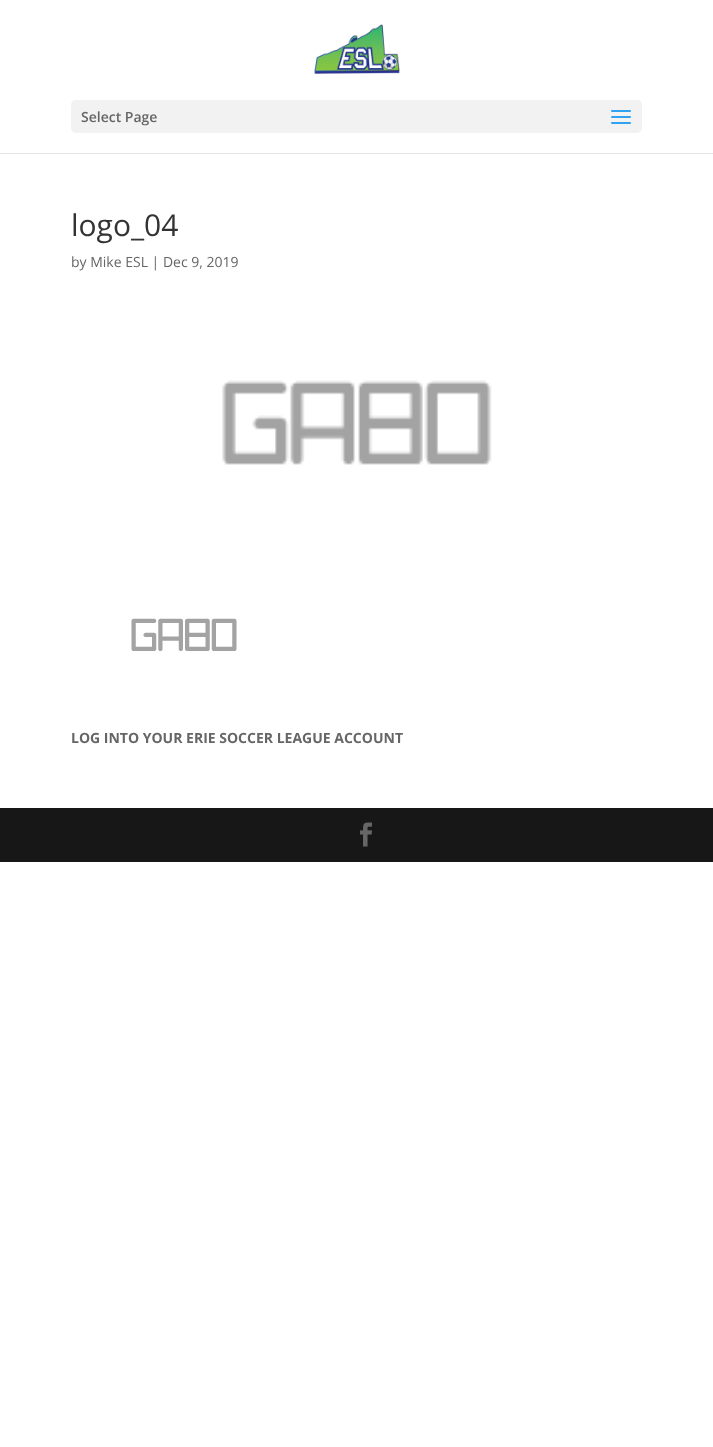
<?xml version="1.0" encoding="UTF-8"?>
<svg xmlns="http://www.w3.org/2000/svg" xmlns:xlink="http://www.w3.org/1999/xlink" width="713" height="1447">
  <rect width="100%" height="100%" fill="#ffffff" />
  <rect y="153" width="713" height="1" fill="#e6e6e6" />
  <image x="314" y="24" width="86" height="50" xlink:href="image1.png" />
  <rect x="71" y="100" width="571" height="33" rx="5" fill="#f2f2f2" />
  <image x="611" y="110" width="20" height="14" xlink:href="image2.png" />
  <image x="222" y="380" width="270" height="85" xlink:href="image3.png" />
  <image x="131" y="618" width="106" height="33" xlink:href="image4.png" />
  <rect y="808" width="713" height="54" fill="#171717" />
  <image x="360" y="822" width="12" height="25" xlink:href="image5.png" />
  <text x="81" y="122" style="font-family: Open Sans; font-size: 14px; font-weight: 600; fill: #666666">Select Page</text>
  <text x="71" y="236" style="font-family: Open Sans; font-size: 30px; fill: #333333">logo_04</text>
  <text x="71" y="267" style="font-family: Open Sans; font-size: 14px; fill: #666666">by Mike ESL | Dec 9, 2019</text>
  <text x="71" y="743" style="font-family: Open Sans; font-size: 14px; font-weight: bold; fill: #666666">LOG INTO YOUR ERIE SOCCER LEAGUE ACCOUNT</text>
</svg>
